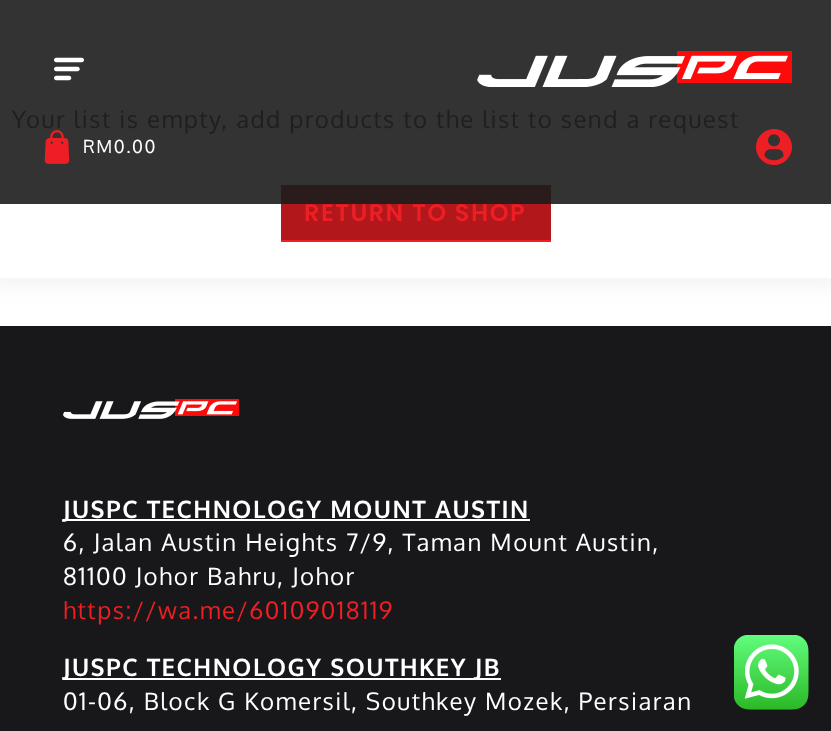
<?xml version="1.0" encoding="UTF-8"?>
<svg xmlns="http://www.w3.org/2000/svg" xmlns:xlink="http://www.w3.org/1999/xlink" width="831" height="731">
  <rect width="100%" height="100%" fill="#ffffff" />
  <rect width="831" height="66" fill="#333333" />
  <rect x="-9" y="104" width="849" height="181" fill="#000000" fill-opacity="0.05" filter="blur(11px)" />
  <rect y="204" width="831" height="74" fill="#ffffff" />
  <rect y="66" width="831" height="138" fill="#333333" />
  <rect x="281" y="204" width="270" height="36" fill="#b2171b" />
  <rect x="281" y="185" width="270" height="19" fill="#2b1c1c" />
  <rect x="281" y="240" width="270" height="2" fill="#ed1f24" />
  <image x="54" y="57" width="30" height="24" xlink:href="image1.png" />
  <image x="477" y="51" width="315" height="36" xlink:href="image2.png" />
  <image x="756" y="129" width="36" height="36" xlink:href="image4.png" />
  <rect y="326" width="831" height="405" fill="#18181b" />
  <image x="63" y="399" width="176" height="20" xlink:href="image5.png" />
  <rect x="63" y="519" width="467" height="2" fill="#ffffff" />
  <rect x="63" y="678" width="438" height="2" fill="#ffffff" />
  <image x="734" y="635" width="75" height="75" xlink:href="image6.png" />
  <text x="12" y="128" style="font-family: Oxygen; font-size: 24px; letter-spacing: 1.5px; fill: #1f1f20">Your list is empty, add products to the list to send a request</text>
  <text x="304" y="221" style="font-family: Poppins; font-size: 24px; font-weight: 600; letter-spacing: 1.5px; fill: #ed1f24">RETURN TO SHOP</text>
  <image x="44" y="130" width="26" height="34" xlink:href="image3.png" />
  <text x="83" y="153" style="font-family: Oxygen; font-size: 18px; letter-spacing: 1.5px; fill: #ffffff">RM0.00</text>
  <text x="63" y="518" style="font-family: Oxygen; font-size: 24px; font-weight: bold; letter-spacing: 1.5px; fill: #ffffff">JUSPC TECHNOLOGY MOUNT AUSTIN</text>
  <text x="63" y="551" style="font-family: Oxygen; font-size: 24px; letter-spacing: 1.5px; fill: #ffffff">6, Jalan Austin Heights 7/9, Taman Mount Austin,</text>
  <text x="63" y="585" style="font-family: Oxygen; font-size: 24px; letter-spacing: 1.5px; fill: #ffffff">81100 Johor Bahru, Johor</text>
  <text x="63" y="619" style="font-family: Oxygen; font-size: 24px; letter-spacing: 1.5px; fill: #ed1f24">https://wa.me/60109018119</text>
  <text x="63" y="676" style="font-family: Oxygen; font-size: 24px; font-weight: bold; letter-spacing: 1.5px; fill: #ffffff">JUSPC TECHNOLOGY SOUTHKEY JB</text>
  <text x="63" y="710" style="font-family: Oxygen; font-size: 24px; letter-spacing: 1.5px; fill: #ffffff">01-06, Block G Komersil, Southkey Mozek, Persiaran</text>
</svg>
